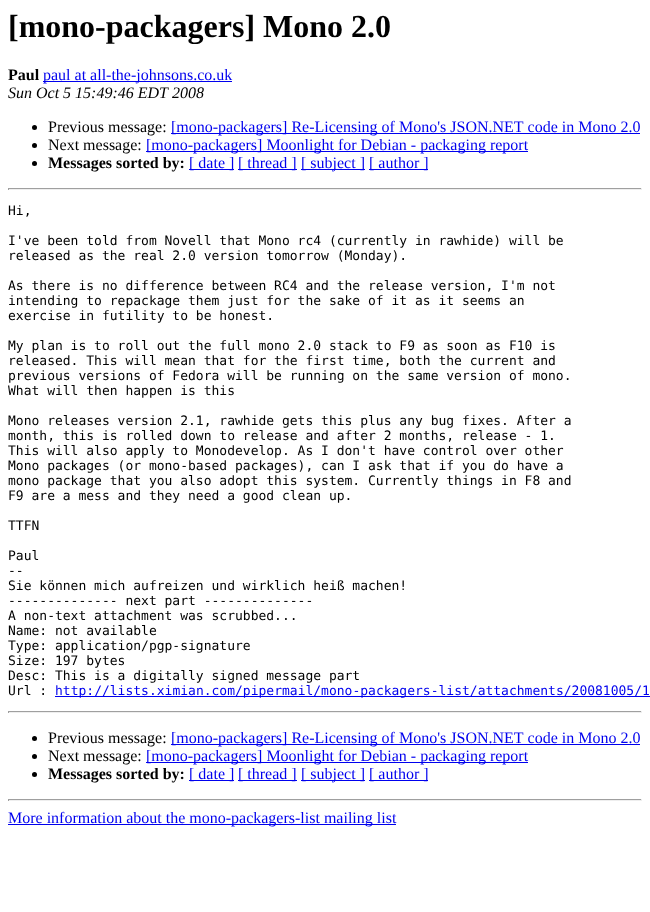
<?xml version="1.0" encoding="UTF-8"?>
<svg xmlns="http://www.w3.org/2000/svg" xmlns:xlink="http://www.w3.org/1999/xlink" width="650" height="912">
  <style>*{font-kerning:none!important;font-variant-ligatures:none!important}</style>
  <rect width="100%" height="100%" fill="#ffffff" />
  <rect x="43" y="81" width="189" height="1" fill="#0000ee" />
  <circle cx="34.5" cy="127.5" r="2.5" fill="#000000" />
  <rect x="171" y="133" width="469" height="1" fill="#0000ee" />
  <circle cx="34.5" cy="145.5" r="2.5" fill="#000000" />
  <rect x="146" y="151" width="382" height="1" fill="#0000ee" />
  <circle cx="34.5" cy="163.5" r="2.5" fill="#000000" />
  <rect x="189" y="169" width="45" height="1" fill="#0000ee" />
  <rect x="238" y="169" width="59" height="1" fill="#0000ee" />
  <rect x="301" y="169" width="64" height="1" fill="#0000ee" />
  <rect x="369" y="169" width="59" height="1" fill="#0000ee" />
  <rect x="8" y="188" width="634" height="1" fill="#9f9f9f" />
  <rect x="641" y="188" width="1" height="2" fill="#eeeeee" />
  <rect x="8" y="189" width="634" height="1" fill="#eeeeee" />
  <rect x="8" y="188" width="1" height="2" fill="#9f9f9f" />
  <rect x="55" y="696" width="595" height="1" fill="#0000ee" />
  <rect x="8" y="711" width="634" height="1" fill="#9f9f9f" />
  <rect x="641" y="711" width="1" height="2" fill="#eeeeee" />
  <rect x="8" y="712" width="634" height="1" fill="#eeeeee" />
  <rect x="8" y="711" width="1" height="2" fill="#9f9f9f" />
  <circle cx="34.5" cy="738.5" r="2.5" fill="#000000" />
  <rect x="171" y="744" width="469" height="1" fill="#0000ee" />
  <circle cx="34.5" cy="756.5" r="2.5" fill="#000000" />
  <rect x="146" y="762" width="382" height="1" fill="#0000ee" />
  <circle cx="34.5" cy="774.5" r="2.5" fill="#000000" />
  <rect x="189" y="780" width="45" height="1" fill="#0000ee" />
  <rect x="238" y="780" width="59" height="1" fill="#0000ee" />
  <rect x="301" y="780" width="64" height="1" fill="#0000ee" />
  <rect x="369" y="780" width="59" height="1" fill="#0000ee" />
  <rect x="8" y="799" width="634" height="1" fill="#9f9f9f" />
  <rect x="641" y="799" width="1" height="2" fill="#eeeeee" />
  <rect x="8" y="800" width="634" height="1" fill="#eeeeee" />
  <rect x="8" y="799" width="1" height="2" fill="#9f9f9f" />
  <rect x="8" y="824" width="388" height="1" fill="#0000ee" />
  <text x="8" y="37" style="font-family: Liberation Serif; font-size: 32px; font-weight: bold; fill: #000000">[mono-packagers] Mono 2.0</text>
  <text x="8" y="80" style="font-family: Liberation Serif; font-size: 16px; font-weight: bold; fill: #000000">Paul</text>
  <text x="43" y="80" style="font-family: Liberation Serif; font-size: 16px; fill: #0000ee">paul at all-the-johnsons.co.uk</text>
  <text x="8" y="98" style="font-family: Liberation Serif; font-size: 16px; font-style: italic; fill: #000000">Sun Oct 5 15:49:46 EDT 2008</text>
  <text x="48" y="132" style="font-family: Liberation Serif; font-size: 16px; fill: #000000">Previous message:</text>
  <text x="171" y="132" style="font-family: Liberation Serif; font-size: 16px; fill: #0000ee">[mono-packagers] Re-Licensing of Mono's JSON.NET code in Mono 2.0</text>
  <text x="48" y="150" style="font-family: Liberation Serif; font-size: 16px; fill: #000000">Next message:</text>
  <text x="146" y="150" style="font-family: Liberation Serif; font-size: 16px; fill: #0000ee">[mono-packagers] Moonlight for Debian - packaging report</text>
  <text x="48" y="168" style="font-family: Liberation Serif; font-size: 16px; font-weight: bold; fill: #000000">Messages sorted by:</text>
  <text x="189" y="168" style="font-family: Liberation Serif; font-size: 16px; fill: #0000ee">[ date ]</text>
  <text x="238" y="168" style="font-family: Liberation Serif; font-size: 16px; fill: #0000ee">[ thread ]</text>
  <text x="301" y="168" style="font-family: Liberation Serif; font-size: 16px; fill: #0000ee">[ subject ]</text>
  <text x="369" y="168" style="font-family: Liberation Serif; font-size: 16px; fill: #0000ee">[ author ]</text>
  <text x="8" y="215" style="font-family: DejaVu Sans Mono; font-size: 13px; fill: #000000">Hi,</text>
  <text x="8" y="245" style="font-family: DejaVu Sans Mono; font-size: 13px; fill: #000000">I've been told from Novell that Mono rc4 (currently in rawhide) will be</text>
  <text x="8" y="260" style="font-family: DejaVu Sans Mono; font-size: 13px; fill: #000000">released as the real 2.0 version tomorrow (Monday).</text>
  <text x="8" y="290" style="font-family: DejaVu Sans Mono; font-size: 13px; fill: #000000">As there is no difference between RC4 and the release version, I'm not</text>
  <text x="8" y="305" style="font-family: DejaVu Sans Mono; font-size: 13px; fill: #000000">intending to repackage them just for the sake of it as it seems an</text>
  <text x="8" y="320" style="font-family: DejaVu Sans Mono; font-size: 13px; fill: #000000">exercise in futility to be honest.</text>
  <text x="8" y="350" style="font-family: DejaVu Sans Mono; font-size: 13px; fill: #000000">My plan is to roll out the full mono 2.0 stack to F9 as soon as F10 is</text>
  <text x="8" y="365" style="font-family: DejaVu Sans Mono; font-size: 13px; fill: #000000">released. This will mean that for the first time, both the current and</text>
  <text x="8" y="380" style="font-family: DejaVu Sans Mono; font-size: 13px; fill: #000000">previous versions of Fedora will be running on the same version of mono.</text>
  <text x="8" y="395" style="font-family: DejaVu Sans Mono; font-size: 13px; fill: #000000">What will then happen is this</text>
  <text x="8" y="425" style="font-family: DejaVu Sans Mono; font-size: 13px; fill: #000000">Mono releases version 2.1, rawhide gets this plus any bug fixes. After a</text>
  <text x="8" y="440" style="font-family: DejaVu Sans Mono; font-size: 13px; fill: #000000">month, this is rolled down to release and after 2 months, release - 1.</text>
  <text x="8" y="455" style="font-family: DejaVu Sans Mono; font-size: 13px; fill: #000000">This will also apply to Monodevelop. As I don't have control over other</text>
  <text x="8" y="470" style="font-family: DejaVu Sans Mono; font-size: 13px; fill: #000000">Mono packages (or mono-based packages), can I ask that if you do have a</text>
  <text x="8" y="485" style="font-family: DejaVu Sans Mono; font-size: 13px; fill: #000000">mono package that you also adopt this system. Currently things in F8 and</text>
  <text x="8" y="500" style="font-family: DejaVu Sans Mono; font-size: 13px; fill: #000000">F9 are a mess and they need a good clean up.</text>
  <text x="8" y="530" style="font-family: DejaVu Sans Mono; font-size: 13px; fill: #000000">TTFN</text>
  <text x="8" y="560" style="font-family: DejaVu Sans Mono; font-size: 13px; fill: #000000">Paul</text>
  <text x="8" y="575" style="font-family: DejaVu Sans Mono; font-size: 13px; fill: #000000">--</text>
  <text x="8" y="590" style="font-family: DejaVu Sans Mono; font-size: 13px; fill: #000000">Sie können mich aufreizen und wirklich heiß machen!</text>
  <text x="8" y="605" style="font-family: DejaVu Sans Mono; font-size: 13px; fill: #000000">-------------- next part --------------</text>
  <text x="8" y="620" style="font-family: DejaVu Sans Mono; font-size: 13px; fill: #000000">A non-text attachment was scrubbed...</text>
  <text x="8" y="635" style="font-family: DejaVu Sans Mono; font-size: 13px; fill: #000000">Name: not available</text>
  <text x="8" y="650" style="font-family: DejaVu Sans Mono; font-size: 13px; fill: #000000">Type: application/pgp-signature</text>
  <text x="8" y="665" style="font-family: DejaVu Sans Mono; font-size: 13px; fill: #000000">Size: 197 bytes</text>
  <text x="8" y="680" style="font-family: DejaVu Sans Mono; font-size: 13px; fill: #000000">Desc: This is a digitally signed message part</text>
  <text x="8" y="695" style="font-family: DejaVu Sans Mono; font-size: 13px; fill: #000000">Url :</text>
  <text x="55" y="695" style="font-family: DejaVu Sans Mono; font-size: 13px; fill: #0000ee">http://lists.ximian.com/pipermail/mono-packagers-list/attachments/20081005/1</text>
  <text x="48" y="743" style="font-family: Liberation Serif; font-size: 16px; fill: #000000">Previous message:</text>
  <text x="171" y="743" style="font-family: Liberation Serif; font-size: 16px; fill: #0000ee">[mono-packagers] Re-Licensing of Mono's JSON.NET code in Mono 2.0</text>
  <text x="48" y="761" style="font-family: Liberation Serif; font-size: 16px; fill: #000000">Next message:</text>
  <text x="146" y="761" style="font-family: Liberation Serif; font-size: 16px; fill: #0000ee">[mono-packagers] Moonlight for Debian - packaging report</text>
  <text x="48" y="779" style="font-family: Liberation Serif; font-size: 16px; font-weight: bold; fill: #000000">Messages sorted by:</text>
  <text x="189" y="779" style="font-family: Liberation Serif; font-size: 16px; fill: #0000ee">[ date ]</text>
  <text x="238" y="779" style="font-family: Liberation Serif; font-size: 16px; fill: #0000ee">[ thread ]</text>
  <text x="301" y="779" style="font-family: Liberation Serif; font-size: 16px; fill: #0000ee">[ subject ]</text>
  <text x="369" y="779" style="font-family: Liberation Serif; font-size: 16px; fill: #0000ee">[ author ]</text>
  <text x="8" y="823" style="font-family: Liberation Serif; font-size: 16px; fill: #0000ee">More information about the mono-packagers-list mailing list</text>
</svg>
